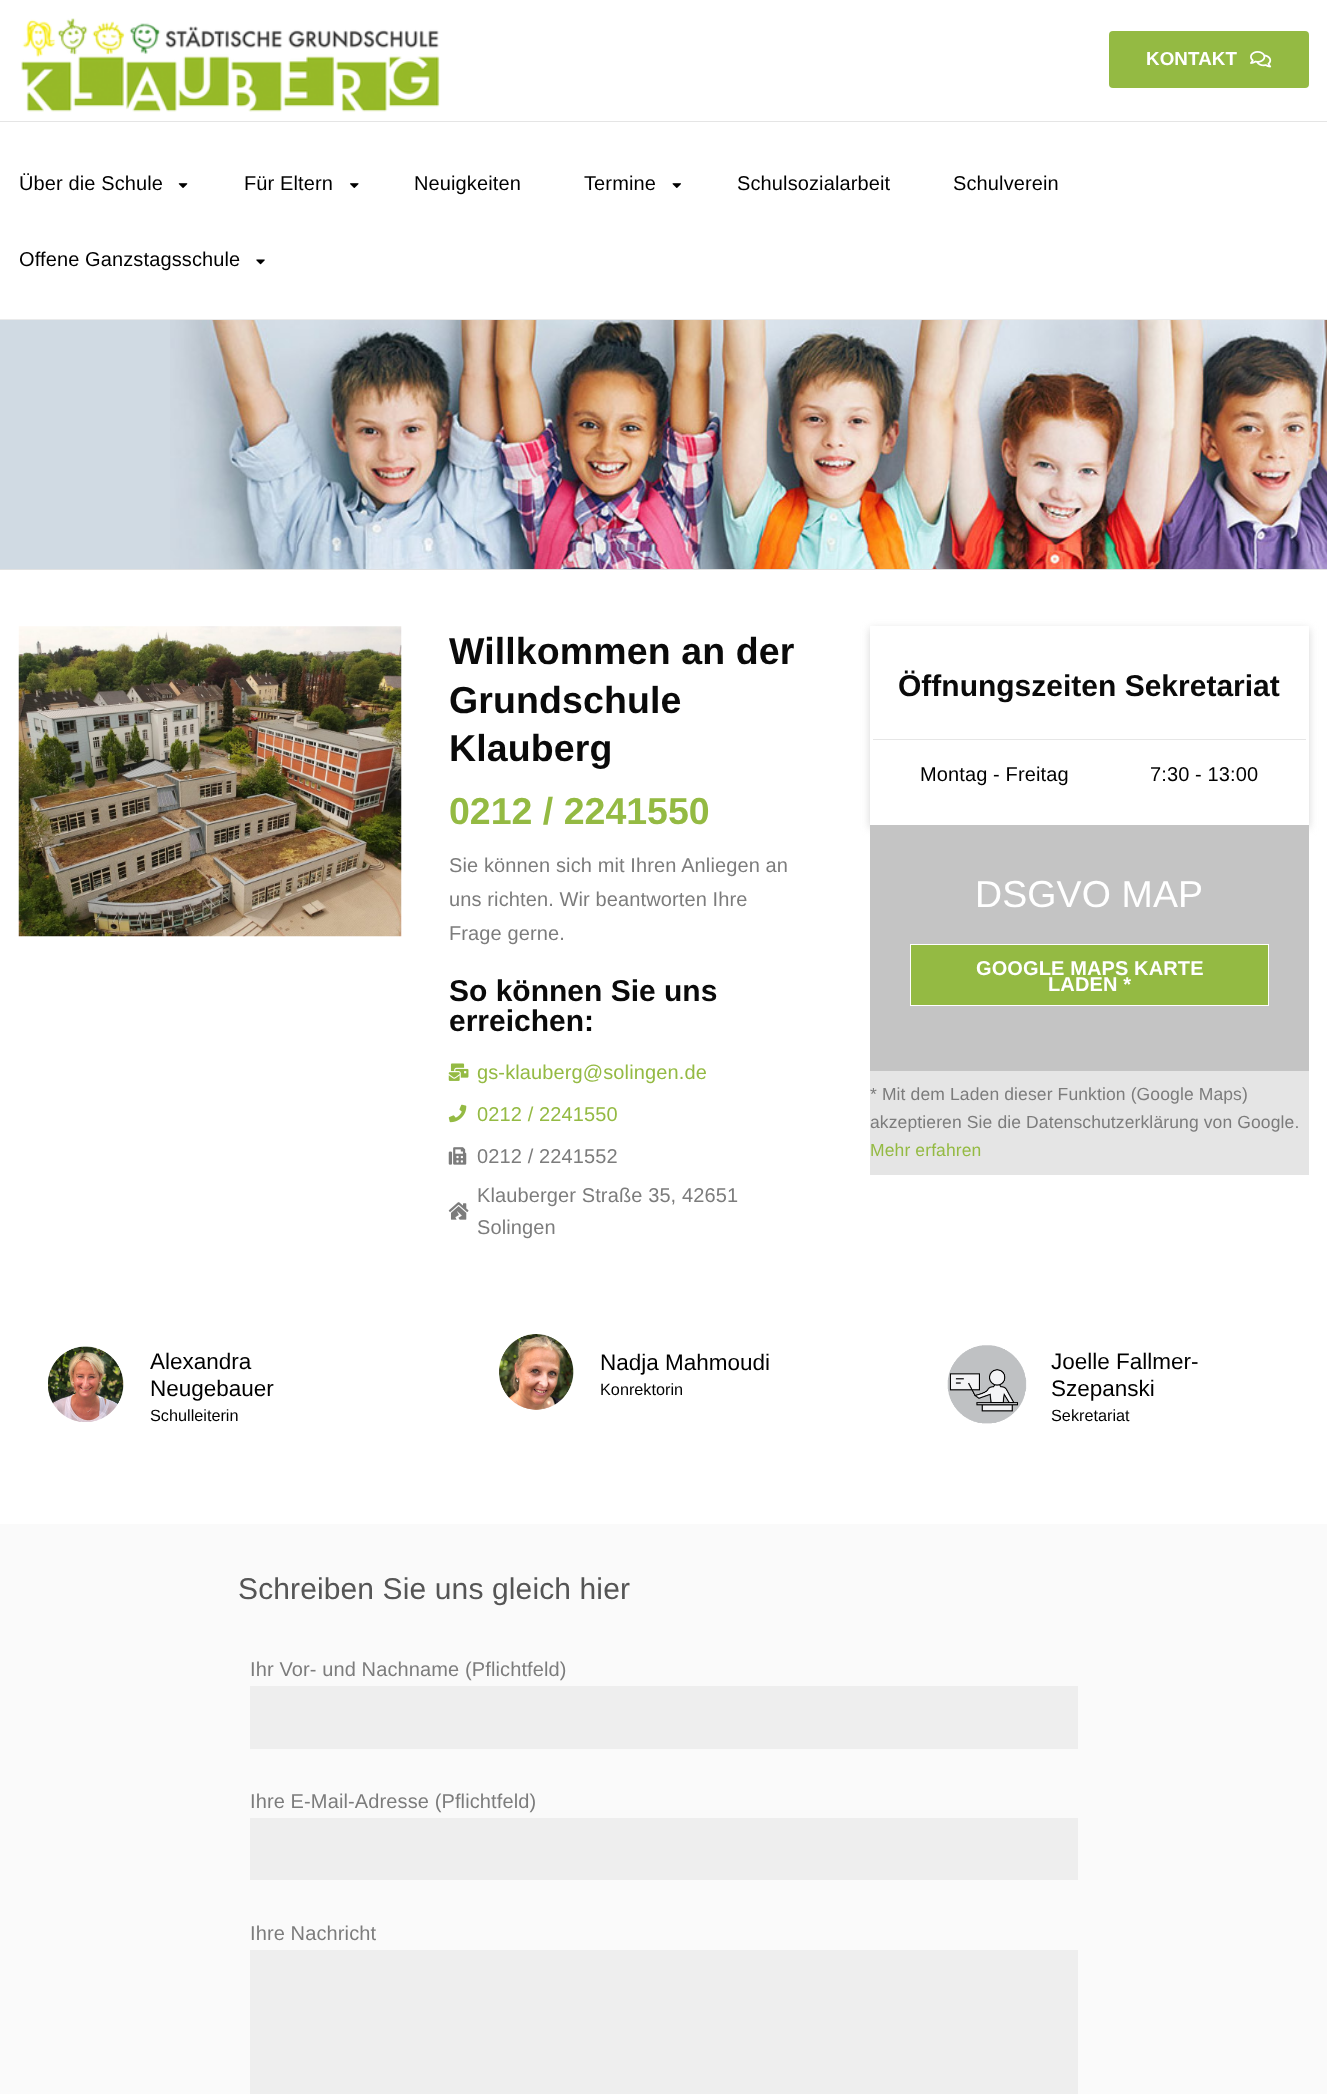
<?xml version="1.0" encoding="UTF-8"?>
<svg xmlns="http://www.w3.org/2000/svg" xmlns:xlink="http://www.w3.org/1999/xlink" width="1327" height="2094">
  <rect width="100%" height="100%" fill="#ffffff" />
  <rect y="319" width="1327" height="1" fill="#ebebeb" />
  <rect y="121" width="1327" height="1" fill="#e5e5e5" />
  <image x="21" y="18" width="419" height="94" xlink:href="image1.png" />
  <rect x="1109" y="31" width="200" height="57" rx="4" fill="#94ba43" />
  <image x="1250" y="51" width="22" height="17" xlink:href="image2.png" />
  <image x="178" y="183" width="10" height="5" xlink:href="image3.png" />
  <image x="350" y="183" width="9" height="5" xlink:href="image4.png" />
  <image x="672" y="183" width="9" height="5" xlink:href="image5.png" />
  <image x="256" y="259" width="9" height="6" xlink:href="image6.png" />
  <rect y="320" width="170" height="249" fill="#d0dae3" />
  <image x="170" y="320" width="1157" height="249" xlink:href="image7.png" />
  <rect y="569" width="1327" height="1" fill="#e1e1e1" />
  <image x="18" y="626" width="384" height="311" xlink:href="image8.png" />
  <image x="448" y="1063" width="21" height="18" xlink:href="image9.png" />
  <image x="448" y="1104" width="19" height="19" xlink:href="image10.png" />
  <image x="448" y="1147" width="19" height="18" xlink:href="image11.png" />
  <image x="448" y="1202" width="21" height="18" xlink:href="image12.png" />
  <rect x="870" y="629" width="439" height="199" fill="#d4d4d4" filter="blur(4.5px)" />
  <rect x="870" y="626" width="439" height="199" fill="#ffffff" />
  <rect x="873" y="739" width="433" height="1" fill="#e6e6e6" />
  <rect x="870" y="1071" width="439" height="104" fill="#e5e5e5" />
  <rect x="870" y="825" width="439" height="246" fill="#c4c4c4" />
  <rect x="910.5" y="944.5" width="358" height="61" fill="#94ba43" stroke="#ffffff" />
  <image x="48" y="1346" width="76" height="76" xlink:href="image13.png" />
  <image x="499" y="1334" width="75" height="76" xlink:href="image14.png" />
  <image x="947" y="1345" width="80" height="79" xlink:href="image15.png" />
  <rect y="1524" width="1327" height="570" fill="#fafafa" />
  <rect x="250" y="1686" width="828" height="63" fill="#eeeeee" />
  <rect x="250" y="1818" width="828" height="62" fill="#eeeeee" />
  <rect x="250" y="1950" width="828" height="144" fill="#eeeeee" />
  <text x="1146" y="65" style="font-family: Liberation Sans; font-size: 18.75px; font-weight: bold; letter-spacing: 0.12px; fill: #ffffff">KONTAKT</text>
  <text x="19" y="190" style="font-family: Liberation Sans; font-size: 20px; letter-spacing: 0.12px; fill: #000000">Über die Schule</text>
  <text x="244" y="190" style="font-family: Liberation Sans; font-size: 20px; letter-spacing: 0.12px; fill: #000000">Für Eltern</text>
  <text x="414" y="190" style="font-family: Liberation Sans; font-size: 20px; letter-spacing: 0.12px; fill: #000000">Neuigkeiten</text>
  <text x="584" y="190" style="font-family: Liberation Sans; font-size: 20px; letter-spacing: 0.12px; fill: #000000">Termine</text>
  <text x="737" y="190" style="font-family: Liberation Sans; font-size: 20px; letter-spacing: 0.12px; fill: #000000">Schulsozialarbeit</text>
  <text x="953" y="190" style="font-family: Liberation Sans; font-size: 20px; letter-spacing: 0.12px; fill: #000000">Schulverein</text>
  <text x="19" y="266" style="font-family: Liberation Sans; font-size: 20px; letter-spacing: 0.12px; fill: #000000">Offene Ganzstagsschule</text>
  <text x="449" y="664" style="font-family: Liberation Sans; font-size: 37.5px; font-weight: bold; letter-spacing: 0.12px; fill: #0a0a0a">Willkommen an der</text>
  <text x="449" y="713" style="font-family: Liberation Sans; font-size: 37.5px; font-weight: bold; letter-spacing: 0.12px; fill: #0a0a0a">Grundschule</text>
  <text x="449" y="761" style="font-family: Liberation Sans; font-size: 37.5px; font-weight: bold; letter-spacing: 0.12px; fill: #0a0a0a">Klauberg</text>
  <text x="449" y="824" style="font-family: Liberation Sans; font-size: 37.5px; font-weight: bold; fill: #94ba43">0212 / 2241550</text>
  <text x="449" y="872" style="font-family: Liberation Sans; font-size: 20px; letter-spacing: 0.12px; fill: #7c7c7c">Sie können sich mit Ihren Anliegen an</text>
  <text x="449" y="906" style="font-family: Liberation Sans; font-size: 20px; letter-spacing: 0.12px; fill: #7c7c7c">uns richten. Wir beantworten Ihre</text>
  <text x="449" y="940" style="font-family: Liberation Sans; font-size: 20px; letter-spacing: 0.12px; fill: #7c7c7c">Frage gerne.</text>
  <text x="449" y="1001" style="font-family: Liberation Sans; font-size: 30px; font-weight: bold; fill: #0a0a0a">So können Sie uns</text>
  <text x="449" y="1031" style="font-family: Liberation Sans; font-size: 30px; font-weight: bold; fill: #0a0a0a">erreichen:</text>
  <text x="477" y="1079" style="font-family: Liberation Sans; font-size: 20px; letter-spacing: 0.12px; fill: #94ba43">gs-klauberg@solingen.de</text>
  <text x="477" y="1121" style="font-family: Liberation Sans; font-size: 20px; letter-spacing: 0.12px; fill: #94ba43">0212 / 2241550</text>
  <text x="477" y="1163" style="font-family: Liberation Sans; font-size: 20px; letter-spacing: 0.12px; fill: #7c7c7c">0212 / 2241552</text>
  <text x="477" y="1202" style="font-family: Liberation Sans; font-size: 20px; letter-spacing: 0.12px; fill: #7c7c7c">Klauberger Straße 35, 42651</text>
  <text x="477" y="1234" style="font-family: Liberation Sans; font-size: 20px; letter-spacing: 0.12px; fill: #7c7c7c">Solingen</text>
  <text x="898" y="696" style="font-family: Liberation Sans; font-size: 30px; font-weight: bold; fill: #0a0a0a">Öffnungszeiten Sekretariat</text>
  <text x="920" y="781" style="font-family: Liberation Sans; font-size: 20px; letter-spacing: 0.12px; fill: #000000">Montag - Freitag</text>
  <text x="1150" y="781" style="font-family: Liberation Sans; font-size: 20px; letter-spacing: 0.12px; fill: #000000">7:30 - 13:00</text>
  <text x="975" y="907" style="font-family: Liberation Sans; font-size: 37.5px; letter-spacing: 0.12px; fill: #ffffff">DSGVO MAP</text>
  <text x="976" y="975" style="font-family: Liberation Sans; font-size: 20px; font-weight: bold; letter-spacing: 0.12px; fill: #ffffff">GOOGLE MAPS KARTE</text>
  <text x="1048" y="991" style="font-family: Liberation Sans; font-size: 20px; font-weight: bold; letter-spacing: 0.12px; fill: #ffffff">LADEN *</text>
  <text x="870" y="1100" style="font-family: Liberation Sans; font-size: 17.5px; letter-spacing: 0.12px; fill: #7c7c7c">* Mit dem Laden dieser Funktion (Google Maps)</text>
  <text x="870" y="1128" style="font-family: Liberation Sans; font-size: 17.5px; letter-spacing: 0.12px; fill: #7c7c7c">akzeptieren Sie die Datenschutzerklärung von Google.</text>
  <text x="870" y="1156" style="font-family: Liberation Sans; font-size: 17.5px; letter-spacing: 0.12px; fill: #94ba43">Mehr erfahren</text>
  <text x="150" y="1369" style="font-family: Liberation Sans; font-size: 22.5px; fill: #000000">Alexandra</text>
  <text x="150" y="1396" style="font-family: Liberation Sans; font-size: 22.5px; fill: #000000">Neugebauer</text>
  <text x="150" y="1421" style="font-family: Liberation Sans; font-size: 16.25px; fill: #000000">Schulleiterin</text>
  <text x="600" y="1370" style="font-family: Liberation Sans; font-size: 22.5px; fill: #000000">Nadja Mahmoudi</text>
  <text x="600" y="1395" style="font-family: Liberation Sans; font-size: 16.25px; fill: #000000">Konrektorin</text>
  <text x="1051" y="1369" style="font-family: Liberation Sans; font-size: 22.5px; fill: #000000">Joelle Fallmer-</text>
  <text x="1051" y="1396" style="font-family: Liberation Sans; font-size: 22.5px; fill: #000000">Szepanski</text>
  <text x="1051" y="1421" style="font-family: Liberation Sans; font-size: 16.25px; fill: #000000">Sekretariat</text>
  <text x="238" y="1599" style="font-family: Liberation Sans; font-size: 30px; letter-spacing: 0.12px; fill: #555555">Schreiben Sie uns gleich hier</text>
  <text x="250" y="1676" style="font-family: Liberation Sans; font-size: 20px; letter-spacing: 0.12px; fill: #7c7c7c">Ihr Vor- und Nachname (Pflichtfeld)</text>
  <text x="250" y="1808" style="font-family: Liberation Sans; font-size: 20px; letter-spacing: 0.12px; fill: #7c7c7c">Ihre E-Mail-Adresse (Pflichtfeld)</text>
  <text x="250" y="1940" style="font-family: Liberation Sans; font-size: 20px; letter-spacing: 0.12px; fill: #7c7c7c">Ihre Nachricht</text>
</svg>
